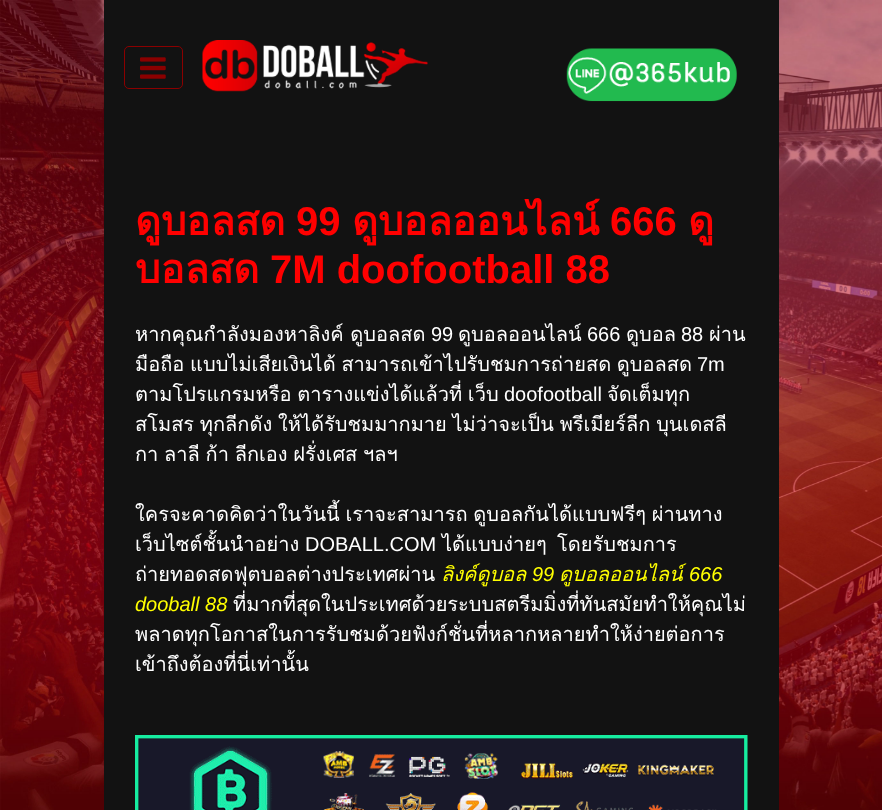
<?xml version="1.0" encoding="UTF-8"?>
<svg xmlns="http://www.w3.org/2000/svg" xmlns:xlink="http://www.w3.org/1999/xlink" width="882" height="810">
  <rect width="100%" height="100%" fill="#ffffff" />
  <image x="0" y="0" width="882" height="810" xlink:href="image1.png" />
  <rect x="104" width="675" height="810" fill="#121212" />
  <rect x="124.5" y="46.5" width="58" height="42" rx="4.5" fill="none" stroke="#8b0000" />
  <image x="140" y="57" width="26" height="22" xlink:href="image2.png" />
  <image x="202" y="40" width="226" height="52" xlink:href="image3.png" />
  <image x="566" y="48" width="171" height="54" xlink:href="image4.png" />
  <image x="135" y="735" width="613" height="75" xlink:href="image5.png" />
  <text x="135" y="235" style="font-family: Loma; font-size: 40px; font-weight: bold; fill: #ff0000">ดูบอลสด</text>
  <text x="296" y="235" style="font-family: Liberation Sans; font-size: 40px; font-weight: bold; fill: #ff0000">99</text>
  <text x="352" y="235" style="font-family: Loma; font-size: 40px; font-weight: bold; fill: #ff0000">ดูบอลออนไลน์</text>
  <text x="610" y="235" style="font-family: Liberation Sans; font-size: 40px; font-weight: bold; fill: #ff0000">666</text>
  <text x="688" y="235" style="font-family: Loma; font-size: 40px; font-weight: bold; fill: #ff0000">ดู</text>
  <text x="135" y="283" style="font-family: Loma; font-size: 40px; font-weight: bold; fill: #ff0000">บอลสด</text>
  <text x="270" y="283" style="font-family: Liberation Sans; font-size: 40px; font-weight: bold; fill: #ff0000">7M doofootball 88</text>
  <text x="135" y="341" style="font-family: Loma; font-size: 20px; fill: #ffffff">หากคุณกำลังมองหาลิงค์ ดูบอลสด</text>
  <text x="431" y="341" style="font-family: Liberation Sans; font-size: 20px; fill: #ffffff">99</text>
  <text x="458" y="341" style="font-family: Loma; font-size: 20px; fill: #ffffff">ดูบอลออนไลน์</text>
  <text x="587" y="341" style="font-family: Liberation Sans; font-size: 20px; fill: #ffffff">666</text>
  <text x="626" y="341" style="font-family: Loma; font-size: 20px; fill: #ffffff">ดูบอล</text>
  <text x="681" y="341" style="font-family: Liberation Sans; font-size: 20px; fill: #ffffff">88</text>
  <text x="709" y="341" style="font-family: Loma; font-size: 20px; fill: #ffffff">ผ่าน</text>
  <text x="135" y="371" word-spacing="-1" style="font-family: Loma; font-size: 20px; fill: #ffffff">มือถือ แบบไม่เสียเงินได้ สามารถเข้าไปรับชมการถ่ายสด ดูบอลสด</text>
  <text x="697" y="371" style="font-family: Liberation Sans; font-size: 20px; fill: #ffffff">7m</text>
  <text x="135" y="401" word-spacing="-1" style="font-family: Loma; font-size: 20px; fill: #ffffff">ตามโปรแกรมหรือ ตารางแข่งได้แล้วที่ เว็บ</text>
  <text x="504" y="401" style="font-family: Liberation Sans; font-size: 20px; fill: #ffffff">doofootball</text>
  <text x="607" y="401" style="font-family: Loma; font-size: 20px; fill: #ffffff">จัดเต็มทุก</text>
  <text x="135" y="431" word-spacing="-1" style="font-family: Loma; font-size: 20px; fill: #ffffff">สโมสร ทุกลีกดัง ให้ได้รับชมมากมาย ไม่ว่าจะเป็น พรีเมียร์ลีก บุนเดสลี</text>
  <text x="135" y="461" word-spacing="-1" style="font-family: Loma; font-size: 20px; fill: #ffffff">กา ลาลี ก้า ลีกเอง ฝรั่งเศส ฯลฯ</text>
  <text x="135" y="521" word-spacing="-1" style="font-family: Loma; font-size: 20px; fill: #ffffff">ใครจะคาดคิดว่าในวันนี้ เราจะสามารถ ดูบอลกันได้แบบฟรีๆ ผ่านทาง</text>
  <text x="135" y="551" style="font-family: Loma; font-size: 20px; fill: #ffffff">เว็บไซต์ชั้นนำอย่าง</text>
  <text x="305" y="551" style="font-family: Liberation Sans; font-size: 20px; fill: #ffffff">DOBALL.COM</text>
  <text x="442" y="551" style="font-family: Loma; font-size: 20px; fill: #ffffff">ได้แบบง่ายๆ</text>
  <text x="557" y="551" style="font-family: Loma; font-size: 20px; fill: #ffffff">โดยรับชมการ</text>
  <text x="135" y="581" style="font-family: Loma; font-size: 20px; fill: #ffffff">ถ่ายทอดสดฟุตบอลต่างประเทศผ่าน</text>
  <text x="441" y="581" style="font-family: Loma; font-size: 20px; font-style: italic; fill: #ffff00">ลิงค์ดูบอล</text>
  <text x="532" y="581" style="font-family: Liberation Sans; font-size: 20px; font-style: italic; fill: #ffff00">99</text>
  <text x="559" y="581" style="font-family: Loma; font-size: 20px; font-style: italic; fill: #ffff00">ดูบอลออนไลน์</text>
  <text x="689" y="581" style="font-family: Liberation Sans; font-size: 20px; font-style: italic; fill: #ffff00">666</text>
  <text x="135" y="611" style="font-family: Liberation Sans; font-size: 20px; font-style: italic; fill: #ffff00">dooball 88</text>
  <text x="233" y="611" style="font-family: Loma; font-size: 20px; fill: #ffffff">ที่มากที่สุดในประเทศด้วยระบบสตรีมมิ่งที่ทันสมัยทำให้คุณไม่</text>
  <text x="135" y="641" style="font-family: Loma; font-size: 20px; fill: #ffffff">พลาดทุกโอกาสในการรับชมด้วยฟังก์ชั่นที่หลากหลายทำให้ง่ายต่อการ</text>
  <text x="135" y="671" style="font-family: Loma; font-size: 20px; fill: #ffffff">เข้าถึงต้องที่นี่เท่านั้น</text>
</svg>
